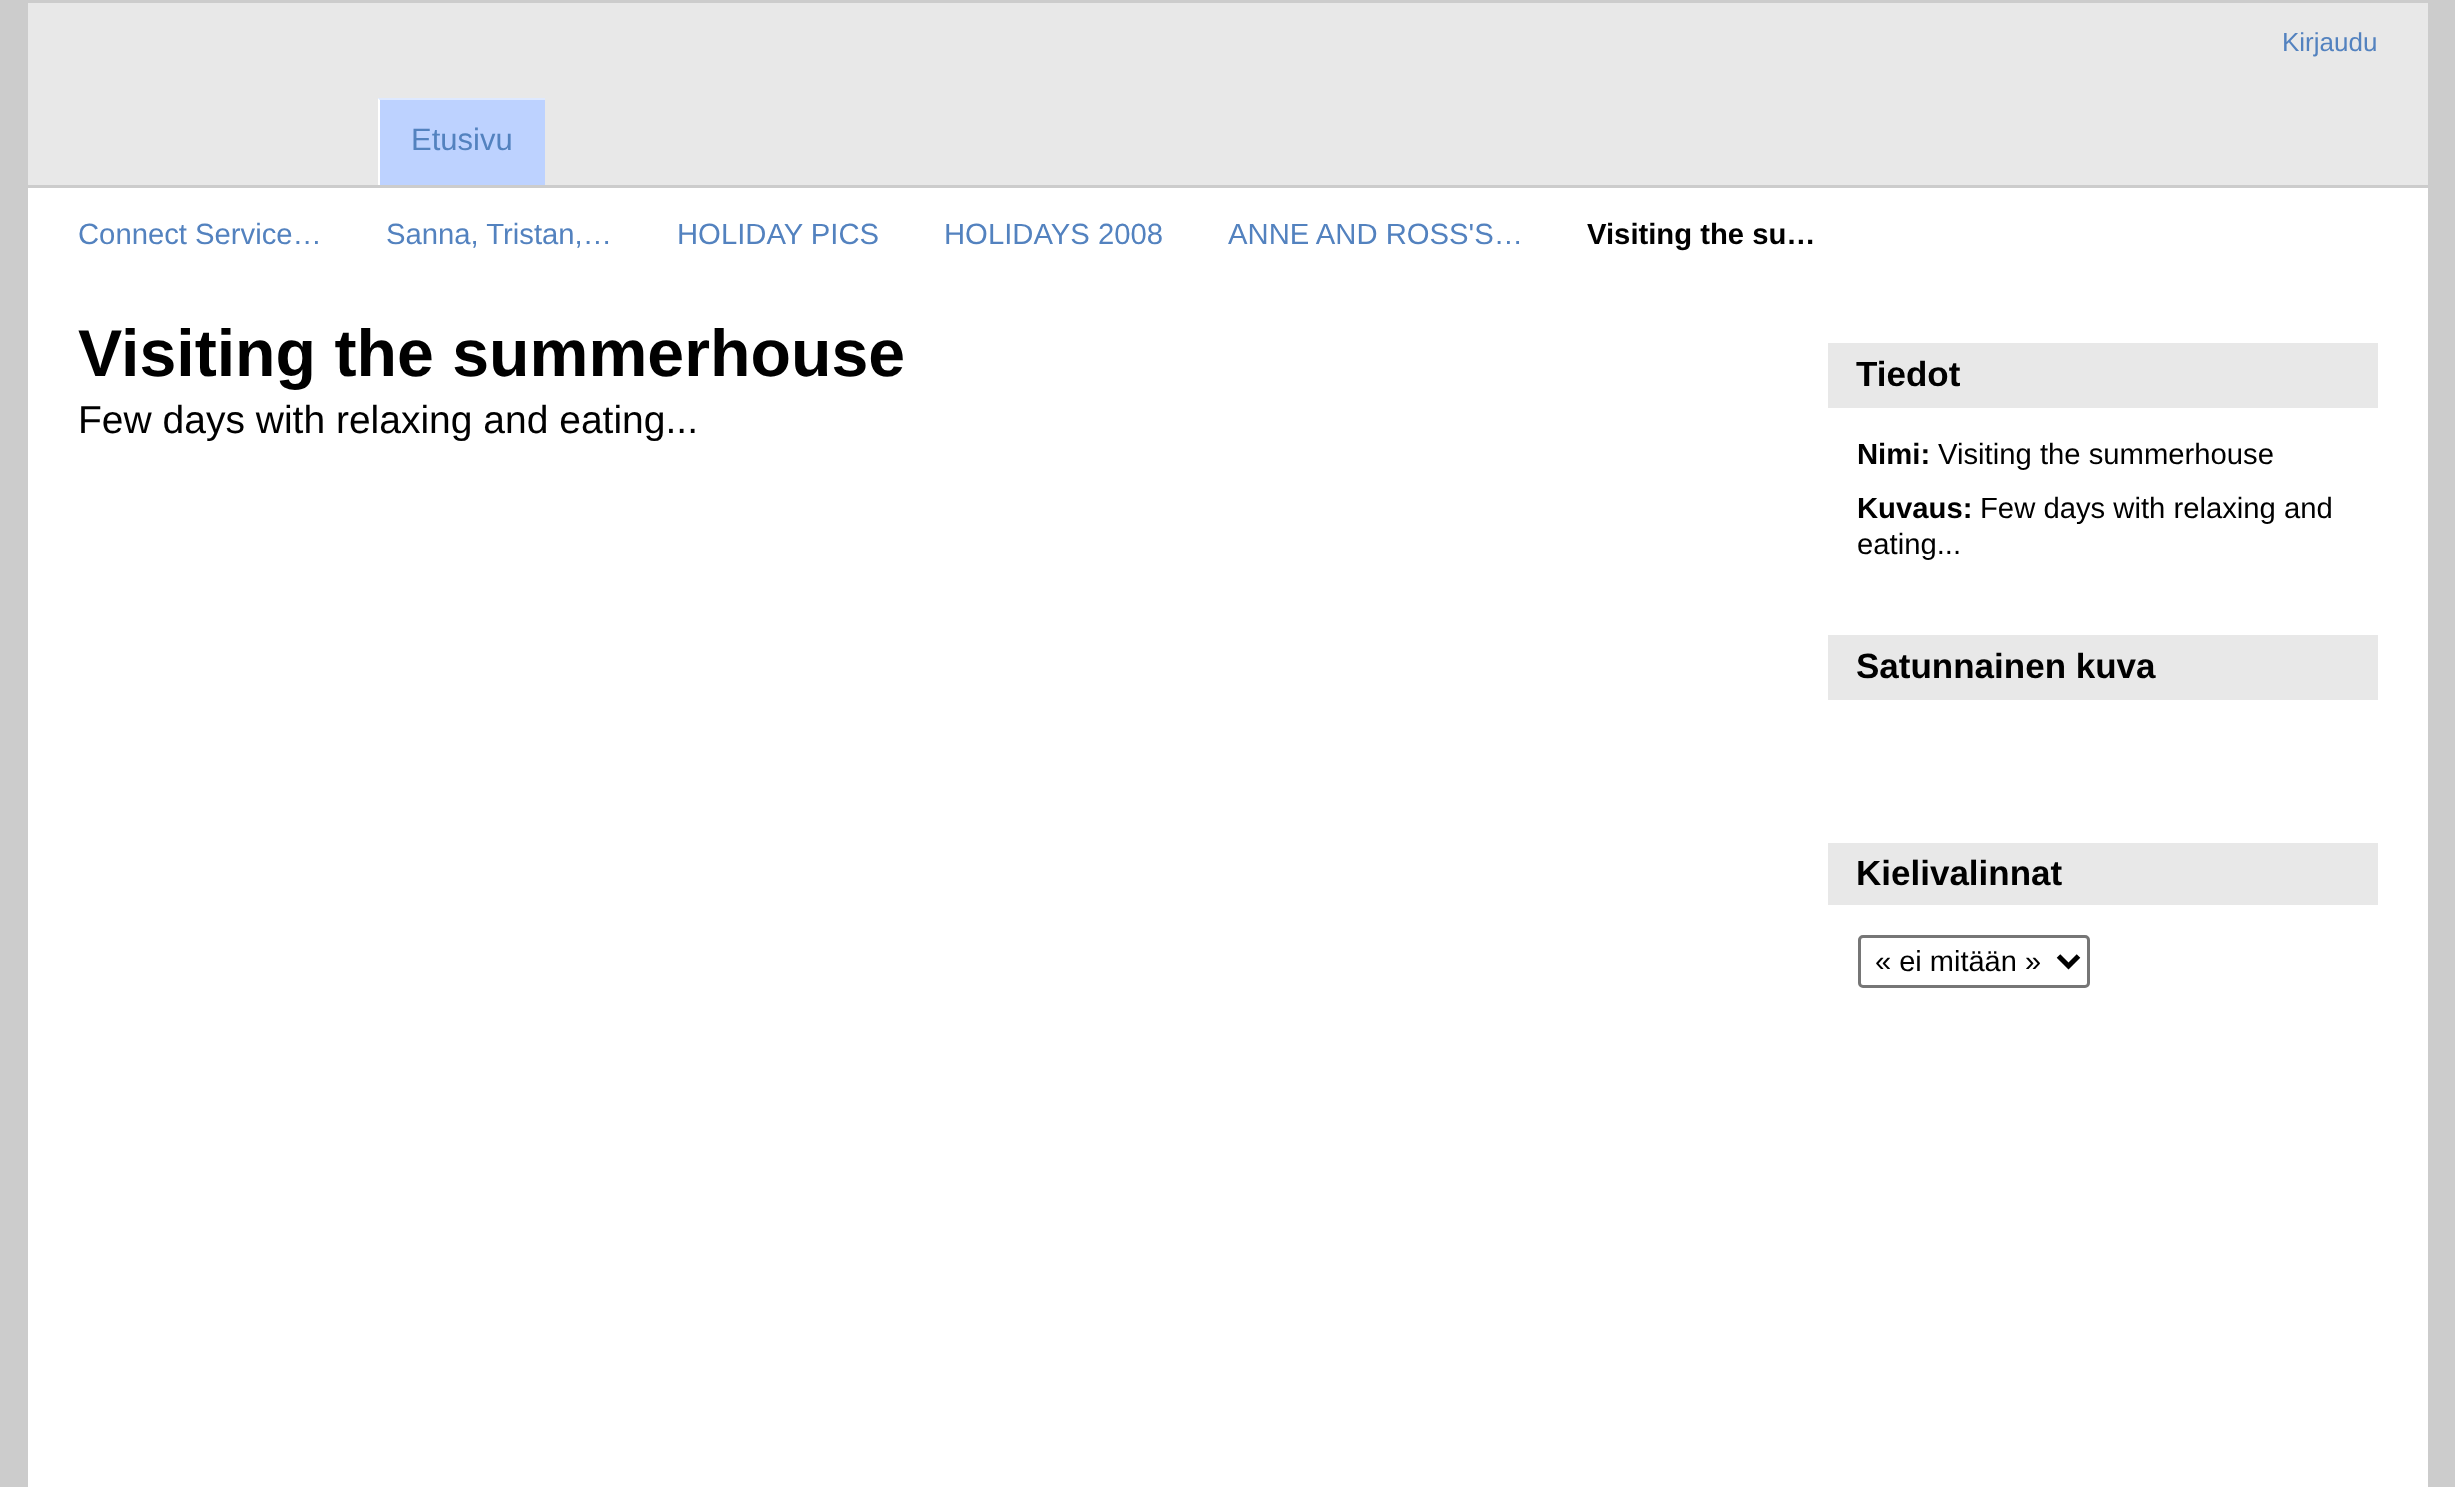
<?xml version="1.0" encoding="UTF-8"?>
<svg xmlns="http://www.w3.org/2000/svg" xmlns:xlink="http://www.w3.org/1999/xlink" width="2455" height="1487">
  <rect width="100%" height="100%" fill="#cccccc" />
  <rect x="28" y="188" width="2400" height="1299" fill="#ffffff" />
  <rect x="28" y="3" width="2400" height="182" fill="#e8e8e8" />
  <rect x="378" y="98" width="167" height="87" fill="#bdd2ff" />
  <path d="M 378 98 h 167 v 2 h -165 z" fill="#dee9ff" />
  <path d="M 378 185 v -87 l 2 2 v 85 z" fill="#ffffff" />
  <rect x="1828" y="343" width="550" height="65" fill="#e8e8e8" />
  <rect x="1828" y="635" width="550" height="65" fill="#e8e8e8" />
  <rect x="1828" y="843" width="550" height="62" fill="#e8e8e8" />
  <rect x="1859.5" y="936.5" width="229" height="50" rx="3.5" fill="none" stroke="#767676" stroke-width="3" />
  <path d="M 2058.5 956 l 10 10 l 10 -10" fill="none" stroke="#000000" stroke-width="5" />
  <text x="2282" y="51" style="font-family: Liberation Sans; font-size: 26px; fill: #5382bf">Kirjaudu</text>
  <text x="411" y="150" style="font-family: Liberation Sans; font-size: 31px; fill: #5382bf">Etusivu</text>
  <text x="78" y="244" style="font-family: Liberation Sans; font-size: 29.25px; fill: #5382bf">Connect Service…</text>
  <text x="386" y="244" style="font-family: Liberation Sans; font-size: 29.25px; fill: #5382bf">Sanna, Tristan,…</text>
  <text x="677" y="244" style="font-family: Liberation Sans; font-size: 29.25px; fill: #5382bf">HOLIDAY PICS</text>
  <text x="944" y="244" style="font-family: Liberation Sans; font-size: 29.25px; fill: #5382bf">HOLIDAYS 2008</text>
  <text x="1228" y="244" style="font-family: Liberation Sans; font-size: 29.25px; fill: #5382bf">ANNE AND ROSS'S…</text>
  <text x="1587" y="244" style="font-family: Liberation Sans; font-size: 29.25px; font-weight: bold; fill: #000000">Visiting the su…</text>
  <text x="78" y="376" style="font-family: Liberation Sans; font-size: 66.25px; font-weight: bold; fill: #000000">Visiting the summerhouse</text>
  <text x="78" y="433" style="font-family: Liberation Sans; font-size: 39px; fill: #000000">Few days with relaxing and eating...</text>
  <text x="1856" y="386" style="font-family: Liberation Sans; font-size: 35px; font-weight: bold; fill: #000000">Tiedot</text>
  <text x="1857" y="464" style="font-family: Liberation Sans; font-size: 29.25px; font-weight: bold; fill: #000000">Nimi:</text>
  <text x="1938" y="464" style="font-family: Liberation Sans; font-size: 29.25px; fill: #000000">Visiting the summerhouse</text>
  <text x="1857" y="518" style="font-family: Liberation Sans; font-size: 29.25px; font-weight: bold; fill: #000000">Kuvaus:</text>
  <text x="1980" y="518" style="font-family: Liberation Sans; font-size: 29.25px; fill: #000000">Few days with relaxing and</text>
  <text x="1857" y="554" style="font-family: Liberation Sans; font-size: 29.25px; fill: #000000">eating...</text>
  <text x="1856" y="678" style="font-family: Liberation Sans; font-size: 35px; font-weight: bold; fill: #000000">Satunnainen kuva</text>
  <text x="1856" y="885" style="font-family: Liberation Sans; font-size: 35px; font-weight: bold; fill: #000000">Kielivalinnat</text>
  <text x="1875" y="971" style="font-family: Liberation Sans; font-size: 29px; fill: #000000">« ei mitään »</text>
</svg>
